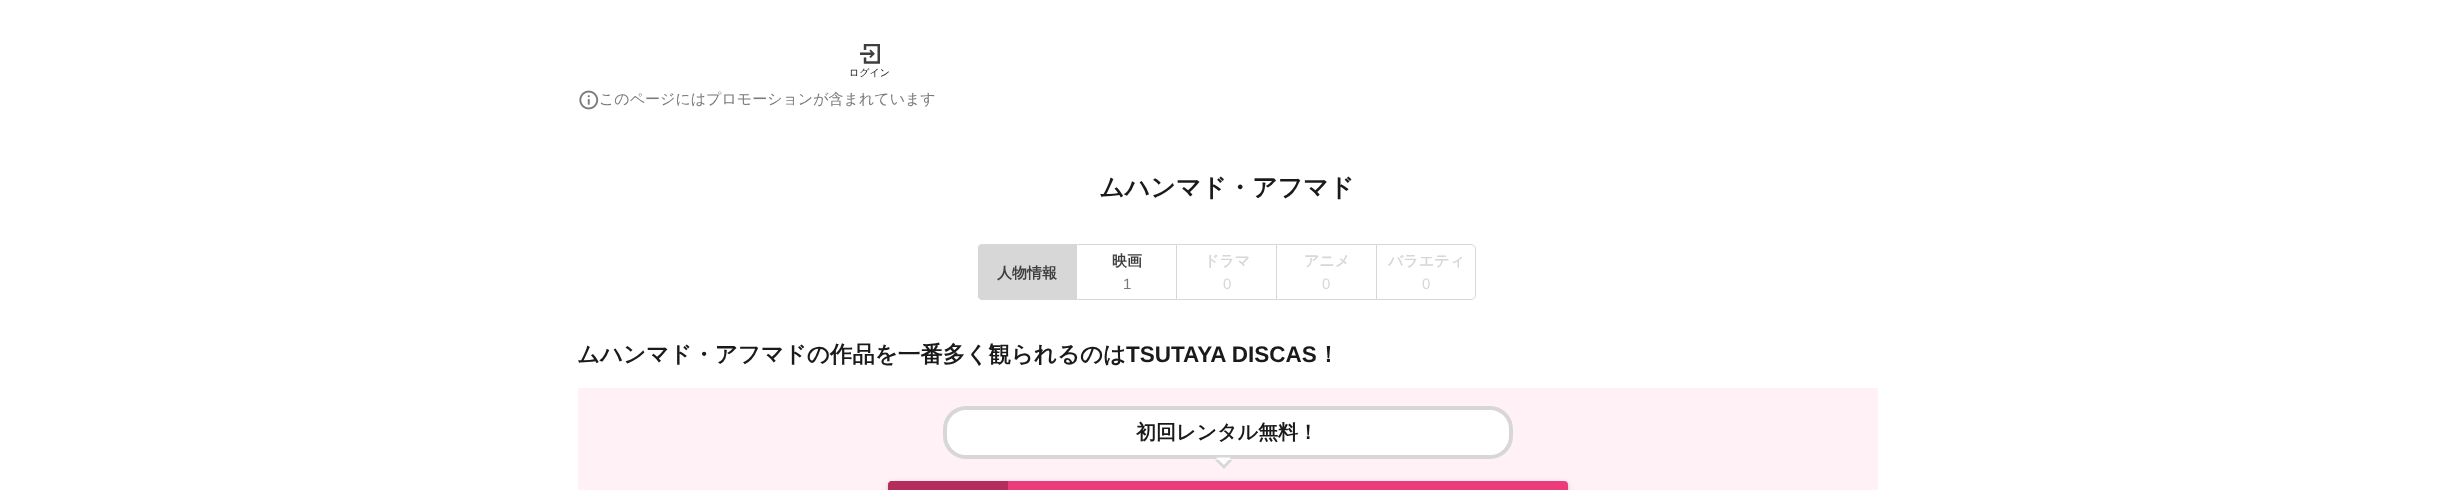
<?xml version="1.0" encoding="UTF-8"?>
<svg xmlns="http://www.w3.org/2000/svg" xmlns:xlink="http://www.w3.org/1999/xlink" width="2453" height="490">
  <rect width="100%" height="100%" fill="#ffffff" />
  <image x="860" y="44" width="20" height="20" xlink:href="image1.png" />
  <image x="579" y="90" width="20" height="20" xlink:href="image2.png" />
  <path d="M 983 244 h 95 v 56 h -95 c -3 0 -5 -2 -5 -5 v -46 c 0 -3 2 -5 5 -5 z" fill="#d7d7d7" />
  <path d="M 982 244 c -1 0 -2 1 -3 1 l 1 1 l 2 -1 h 94 l 1 -1 z" fill="#d7d7d7" />
  <path d="M 1078 300 l -2 -2 v 1 h -94 l -2 -1 h -1 c 1 1 2 2 3 2 z" fill="#d7d7d7" />
  <path d="M 979 245 c -1 1 -1 3 -1 4 v 46 c 0 1 0 3 1 3 h 1 l -1 -3 v -46 l 1 -3 z" fill="#d7d7d7" />
  <rect x="1077" y="244" width="1" height="56" fill="#ffffff" />
  <path d="M 1076 244 h 102 l -2 1 h -98 z" fill="#d7d7d7" />
  <path d="M 1178 300 h -102 l 2 -1 h 98 z" fill="#d7d7d7" />
  <rect x="1177" y="244" width="1" height="56" fill="#ffffff" />
  <path d="M 1176 244 h 102 l -2 1 h -98 z" fill="#d7d7d7" />
  <path d="M 1278 300 h -102 l 2 -1 h 98 z" fill="#d7d7d7" />
  <rect x="1176" y="244" width="1" height="56" fill="#d7d7d7" />
  <rect x="1277" y="244" width="1" height="56" fill="#ffffff" />
  <path d="M 1276 244 h 102 l -2 1 h -98 z" fill="#d7d7d7" />
  <path d="M 1378 300 h -102 l 2 -1 h 98 z" fill="#d7d7d7" />
  <rect x="1276" y="244" width="1" height="56" fill="#d7d7d7" />
  <path d="M 1376.5 244.5 h 94.5 c 2.5 0 4.5 2 4.5 4.5 v 46 c 0 2.5 -2 4.5 -4.5 4.5 h -94.5 z" fill="#ffffff" stroke="#d7d7d7" />
  <rect x="578" y="388" width="1300" height="102" fill="#fff1f6" />
  <rect x="945" y="408" width="566" height="49" rx="21" fill="#ffffff" stroke="#d7d7d7" stroke-width="4" />
  <path d="M 1215 460 h 17.5 l -8.5 9 z" fill="#d7d7d7" />
  <path d="M 1216 457.5 h 15 l -7 7.5 z" fill="#ffffff" />
  <rect x="888" y="483" width="680" height="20" rx="4" fill="#000000" fill-opacity="0.12" filter="blur(3px)" />
  <rect x="888" y="484" width="680" height="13" rx="4" fill="#000000" fill-opacity="0.14" filter="blur(1px)" />
  <rect x="888" y="481" width="680" height="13" rx="4" fill="#eb3b7a" />
  <path d="M 892 481 h 116 v 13 h -116 c -2 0 -4 -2 -4 -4 v -5 c 0 -2 2 -4 4 -4 z" fill="#b42d5d" />
  <text x="849" y="76" style="font-family: WenQuanYi Zen Hei; font-size: 10px; font-weight: 500; fill: #1a1a1a">ログイン</text>
  <text x="599" y="104" style="font-family: WenQuanYi Zen Hei; font-size: 15px; font-weight: 500; fill: #7a7a7a">このページにはプロモーションが含まれています</text>
  <text x="1099" y="196" style="font-family: WenQuanYi Zen Hei; font-size: 25px; font-weight: bold; fill: #1a1a1a">ムハンマド・アフマド</text>
  <text x="997" y="278" style="font-family: WenQuanYi Zen Hei; font-size: 15px; font-weight: bold; fill: #3e3e3e">人物情報</text>
  <text x="1112" y="266" style="font-family: WenQuanYi Zen Hei; font-size: 15px; font-weight: bold; fill: #3e3e3e">映画</text>
  <text x="1123" y="289" style="font-family: Liberation Sans; font-size: 15px; fill: #7a7a7a">1</text>
  <text x="1204" y="266" style="font-family: WenQuanYi Zen Hei; font-size: 15px; font-weight: bold; fill: #d7d7d7">ドラマ</text>
  <text x="1223" y="289" style="font-family: Liberation Sans; font-size: 15px; fill: #d7d7d7">0</text>
  <text x="1304" y="266" style="font-family: WenQuanYi Zen Hei; font-size: 15px; font-weight: bold; fill: #d7d7d7">アニメ</text>
  <text x="1322" y="289" style="font-family: Liberation Sans; font-size: 15px; fill: #d7d7d7">0</text>
  <text x="1388" y="266" style="font-family: WenQuanYi Zen Hei; font-size: 15px; font-weight: bold; fill: #d7d7d7">バラエティ</text>
  <text x="1422" y="289" style="font-family: Liberation Sans; font-size: 15px; fill: #d7d7d7">0</text>
  <text x="577" y="362" style="font-family: WenQuanYi Zen Hei; font-size: 22.5px; font-weight: bold; fill: #1a1a1a">ムハンマド・アフマドの作品を一番多く観られるのは</text>
  <text x="1126" y="362" style="font-family: Liberation Sans; font-size: 22.5px; font-weight: bold; fill: #1a1a1a">TSUTAYA DISCAS</text>
  <text x="1317" y="362" style="font-family: WenQuanYi Zen Hei; font-size: 22.5px; font-weight: bold; fill: #1a1a1a">！</text>
  <text x="1136" y="439" style="font-family: WenQuanYi Zen Hei; font-size: 20px; font-weight: bold; fill: #1a1a1a">初回レンタル無料！</text>
</svg>
